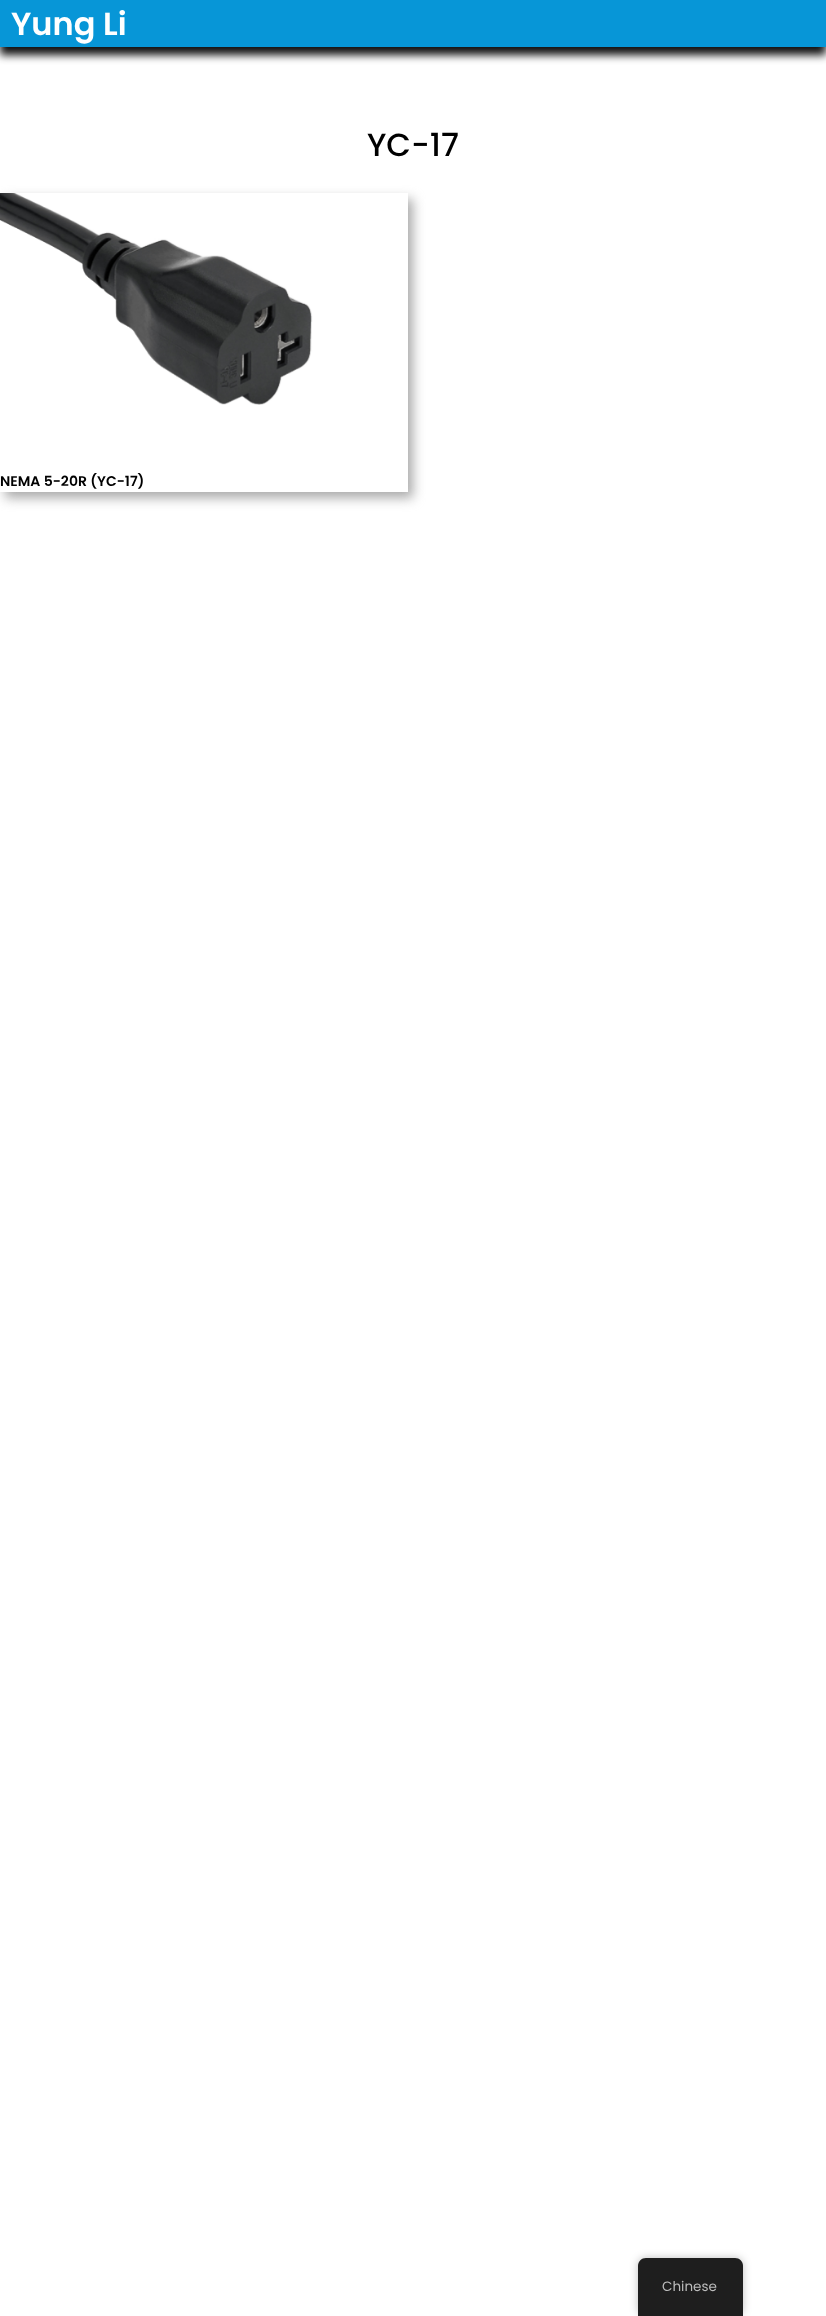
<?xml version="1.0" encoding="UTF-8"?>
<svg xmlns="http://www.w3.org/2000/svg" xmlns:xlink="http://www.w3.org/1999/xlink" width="826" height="2316">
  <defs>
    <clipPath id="clip1"><path d="M 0 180 h 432 v 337 h -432 z m 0 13 h 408 v 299 h -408 z" clip-rule="evenodd" /></clipPath>
  </defs>
  <rect width="100%" height="100%" fill="#ffffff" />
  <rect y="8" width="826" height="47" fill="#111111" filter="blur(4px)" />
  <rect width="826" height="47" fill="#0796d7" />
  <g clip-path="url(#clip1)">
    <rect x="5" y="199" width="408" height="299" fill="#aaaaaa" filter="blur(6px)" />
  </g>
  <image x="0" y="193" width="313" height="212" xlink:href="image1.png" />
  <rect x="638" y="2258" width="105" height="58" rx="8" fill="#000000" fill-opacity="0.25" filter="blur(4px)" />
  <path d="M 646 2258 h 89 c 4.5 0 8 3.5 8 8 v 50 h -105 v -50 c 0 -4.5 3.5 -8 8 -8 z" fill="#1e1e1e" />
  <text x="11" y="35" style="font-family: Poppins; font-size: 32px; font-weight: 600; fill: #ffffff">Yung Li</text>
  <text x="367" y="156" style="font-family: Poppins; font-size: 32px; font-weight: 500; fill: #000000">YC-17</text>
  <text x="0" y="486" style="font-family: Poppins; font-size: 14px; font-weight: 600; fill: #000000">NEMA 5-20R (YC-17)</text>
  <text x="662" y="2291" style="font-family: Poppins; font-size: 13.5px; fill: #bdbdbd">Chinese</text>
</svg>
